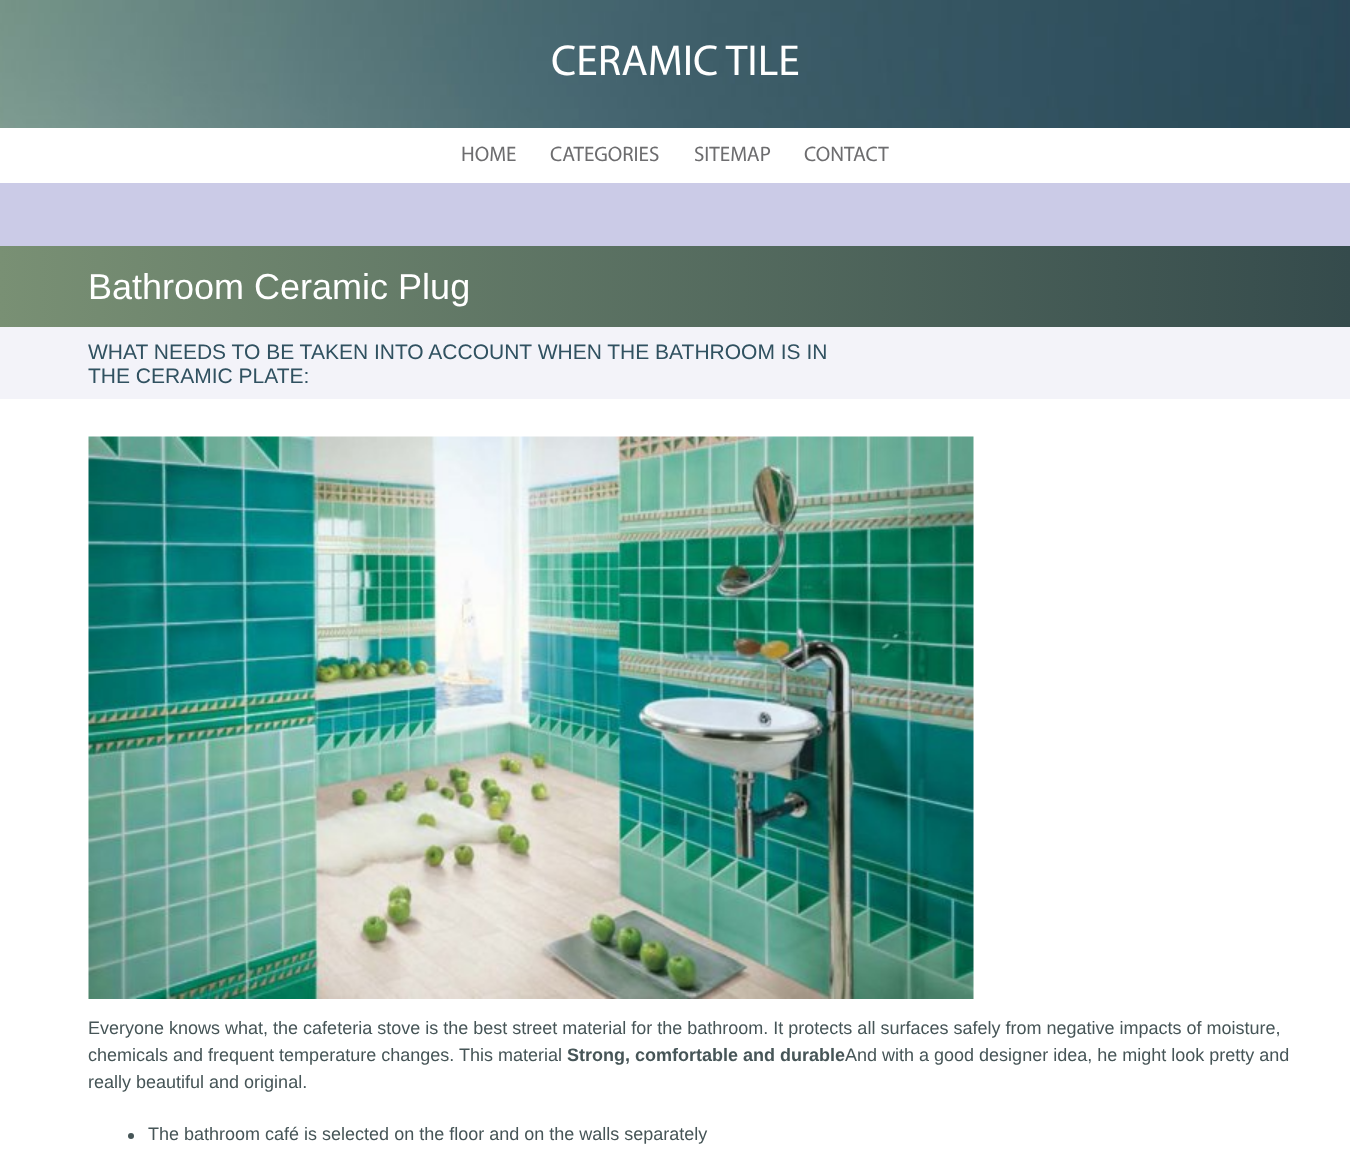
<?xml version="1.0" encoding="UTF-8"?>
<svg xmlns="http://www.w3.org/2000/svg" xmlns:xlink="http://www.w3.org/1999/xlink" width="1350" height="1155">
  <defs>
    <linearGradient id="g1" gradientUnits="userSpaceOnUse" x1="0" y1="287" x2="1350" y2="286"><stop offset="0" stop-color="#799074" /><stop offset="1" stop-color="#354b4c" /></linearGradient>
  </defs>
  <rect width="100%" height="100%" fill="#cbcbe7" />
  <image x="0" y="0" width="1350" height="128" xlink:href="image1.png" />
  <rect y="128" width="1350" height="55" fill="#ffffff" />
  <rect y="399" width="1350" height="756" fill="#ffffff" />
  <rect y="246" width="1350" height="81" fill="url(#g1)" />
  <rect y="327" width="1350" height="72" fill="#f3f3f9" />
  <image x="88" y="436" width="886" height="563" xlink:href="image2.png" />
  <circle cx="131" cy="1136" r="3" fill="#465557" />
  <text x="551" y="75" style="font-family: Myriad; font-size: 43.5px; fill: #ffffff">CERAMIC TILE</text>
  <text x="461" y="161" style="font-family: Myriad; font-size: 21px; fill: #6d6d6f">HOME</text>
  <text x="550" y="161" style="font-family: Myriad; font-size: 21px; fill: #6d6d6f">CATEGORIES</text>
  <text x="694" y="161" style="font-family: Myriad; font-size: 21px; fill: #6d6d6f">SITEMAP</text>
  <text x="804" y="161" style="font-family: Myriad; font-size: 21px; fill: #6d6d6f">CONTACT</text>
  <text x="88" y="299" style="font-family: Liberation Sans; font-size: 36px; fill: #ffffff">Bathroom Ceramic Plug</text>
  <text x="88" y="359" style="font-family: Liberation Sans; font-size: 21px; fill: #305160">WHAT NEEDS TO BE TAKEN INTO ACCOUNT WHEN THE BATHROOM IS IN</text>
  <text x="88" y="383" style="font-family: Liberation Sans; font-size: 21px; fill: #305160">THE CERAMIC PLATE:</text>
  <text x="88" y="1034" style="font-family: Liberation Sans; font-size: 18px; fill: #465557">Everyone knows what, the cafeteria stove is the best street material for the bathroom. It protects all surfaces safely from negative impacts of moisture,</text>
  <text x="88" y="1061" style="font-family: Liberation Sans; font-size: 18px; fill: #465557">chemicals and frequent temperature changes. This material</text>
  <text x="567" y="1061" style="font-family: Liberation Sans; font-size: 18px; font-weight: bold; fill: #465557">Strong, comfortable and durable</text>
  <text x="845" y="1061" style="font-family: Liberation Sans; font-size: 18px; fill: #465557">And with a good designer idea, he might look pretty and</text>
  <text x="88" y="1088" style="font-family: Liberation Sans; font-size: 18px; fill: #465557">really beautiful and original.</text>
  <text x="148" y="1140" style="font-family: Liberation Sans; font-size: 18px; fill: #465557">The bathroom café is selected on the floor and on the walls separately</text>
</svg>
